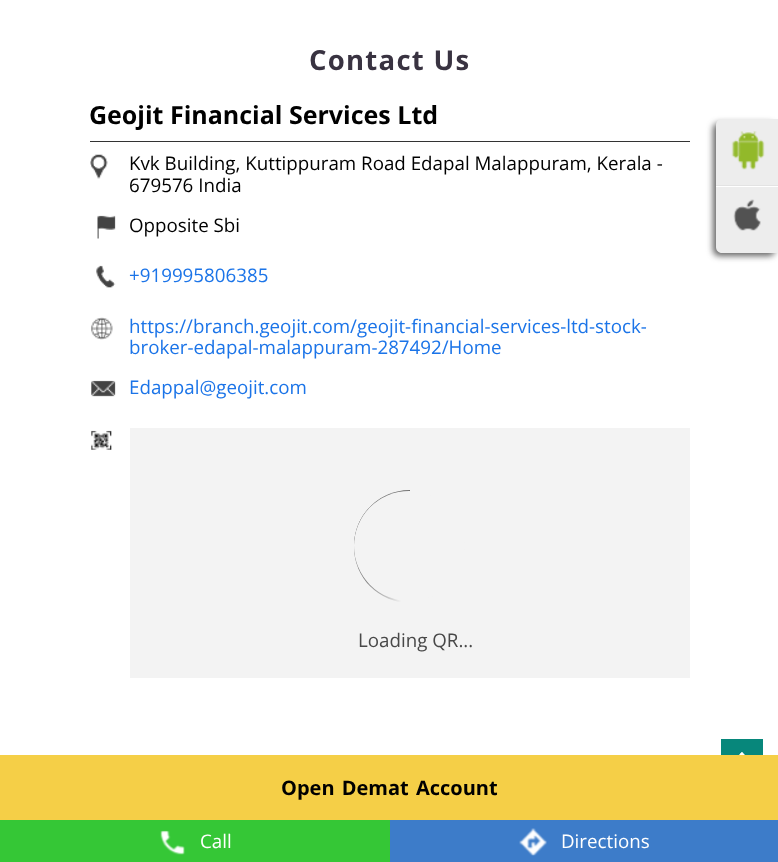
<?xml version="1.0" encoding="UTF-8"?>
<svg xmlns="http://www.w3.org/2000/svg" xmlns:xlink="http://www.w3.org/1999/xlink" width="778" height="862">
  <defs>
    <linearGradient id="g1" gradientUnits="userSpaceOnUse" x1="354" y1="546" x2="466" y2="546"><stop offset="0.1" stop-color="#7d7d7d" /><stop offset="0.42" stop-color="#f3f3f3" /></linearGradient>
  </defs>
  <rect width="100%" height="100%" fill="#ffffff" />
  <rect x="90" y="141" width="600" height="1" fill="#333333" />
  <image x="90" y="154" width="18" height="25" xlink:href="image1.png" />
  <image x="97" y="215" width="19" height="24" xlink:href="image2.png" />
  <image x="96" y="265" width="20" height="23" xlink:href="image3.png" />
  <image x="91" y="317" width="22" height="23" xlink:href="image4.png" />
  <image x="91" y="380" width="25" height="17" xlink:href="image5.png" />
  <image x="91" y="430" width="21" height="20" xlink:href="image6.png" />
  <rect x="130" y="428" width="560" height="250" fill="#f3f3f3" />
  <rect x="354" y="490" width="112" height="113" rx="56" fill="url(#g1)" />
  <path d="M 410 490 v 56 h -56 c 0 -31 25 -56 56 -56 z" fill="#6f6f6f" />
  <rect x="354" y="491" width="111" height="110" rx="55" fill="#f3f3f3" />
  <rect x="713" y="123" width="62" height="133" rx="6" fill="#323232" fill-opacity="0.75" filter="blur(3px)" />
  <path d="M 722 119 h 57 v 134 h -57 c -3.5 0 -6 -2.5 -6 -6 v -122 c 0 -3.5 2.5 -6 6 -6 z" fill="#ededed" />
  <rect x="716" y="185" width="62" height="1" fill="#e3e3e3" />
  <image x="731" y="131" width="34" height="39" xlink:href="image7.png" />
  <rect x="716" y="186" width="62" height="1" fill="#ffffff" />
  <image x="733" y="199" width="28" height="32" xlink:href="image8.png" />
  <rect y="820" width="390" height="42" fill="#35c736" />
  <image x="160" y="830" width="25" height="25" xlink:href="image9.png" />
  <rect x="390" y="820" width="388" height="42" fill="#3d7cc9" />
  <image x="519" y="828" width="28" height="28" xlink:href="image10.png" />
  <rect x="721" y="739" width="42" height="16" fill="#07877b" />
  <path d="M 729.5 768 l -2 -2 l 14.5 -14 l 1.5 2 z" fill="#ffffff" />
  <path d="M 754 768 l -14 -14 l 2 -2 l 14 14 z" fill="#ffffff" />
  <rect y="755" width="778" height="65" fill="#f5cf47" />
  <text x="309" y="70" style="font-family: Open Sans; font-size: 27.5px; font-weight: bold; letter-spacing: 1.25px; fill: #393341">Contact Us</text>
  <text x="89" y="124" style="font-family: Open Sans; font-size: 25px; font-weight: bold; fill: #000000">Geojit Financial Services Ltd</text>
  <text x="129" y="170" style="font-family: Open Sans; font-size: 18.75px; fill: #000000">Kvk Building, Kuttippuram Road Edapal Malappuram, Kerala -</text>
  <text x="129" y="192" style="font-family: Open Sans; font-size: 18.75px; fill: #000000">679576 India</text>
  <text x="129" y="232" style="font-family: Open Sans; font-size: 18.75px; fill: #000000">Opposite Sbi</text>
  <text x="129" y="282" style="font-family: Open Sans; font-size: 18.75px; fill: #1b74e8">+919995806385</text>
  <text x="129" y="333" style="font-family: Open Sans; font-size: 18.75px; fill: #1b74e8">https://branch.geojit.com/geojit-financial-services-ltd-stock-</text>
  <text x="129" y="354" style="font-family: Open Sans; font-size: 18.75px; fill: #1b74e8">broker-edapal-malappuram-287492/Home</text>
  <text x="129" y="394" style="font-family: Open Sans; font-size: 18.75px; fill: #1b74e8">Edappal@geojit.com</text>
  <text x="358" y="647" style="font-family: Open Sans; font-size: 18.75px; fill: #484848">Loading QR...</text>
  <text x="200" y="848" style="font-family: Open Sans; font-size: 18.75px; fill: #ffffff">Call</text>
  <text x="561" y="848" style="font-family: Open Sans; font-size: 18.75px; fill: #ffffff">Directions</text>
  <text x="281" y="795" word-spacing="2" style="font-family: Open Sans; font-size: 20px; font-weight: bold; fill: #000000">Open Demat Account</text>
</svg>
